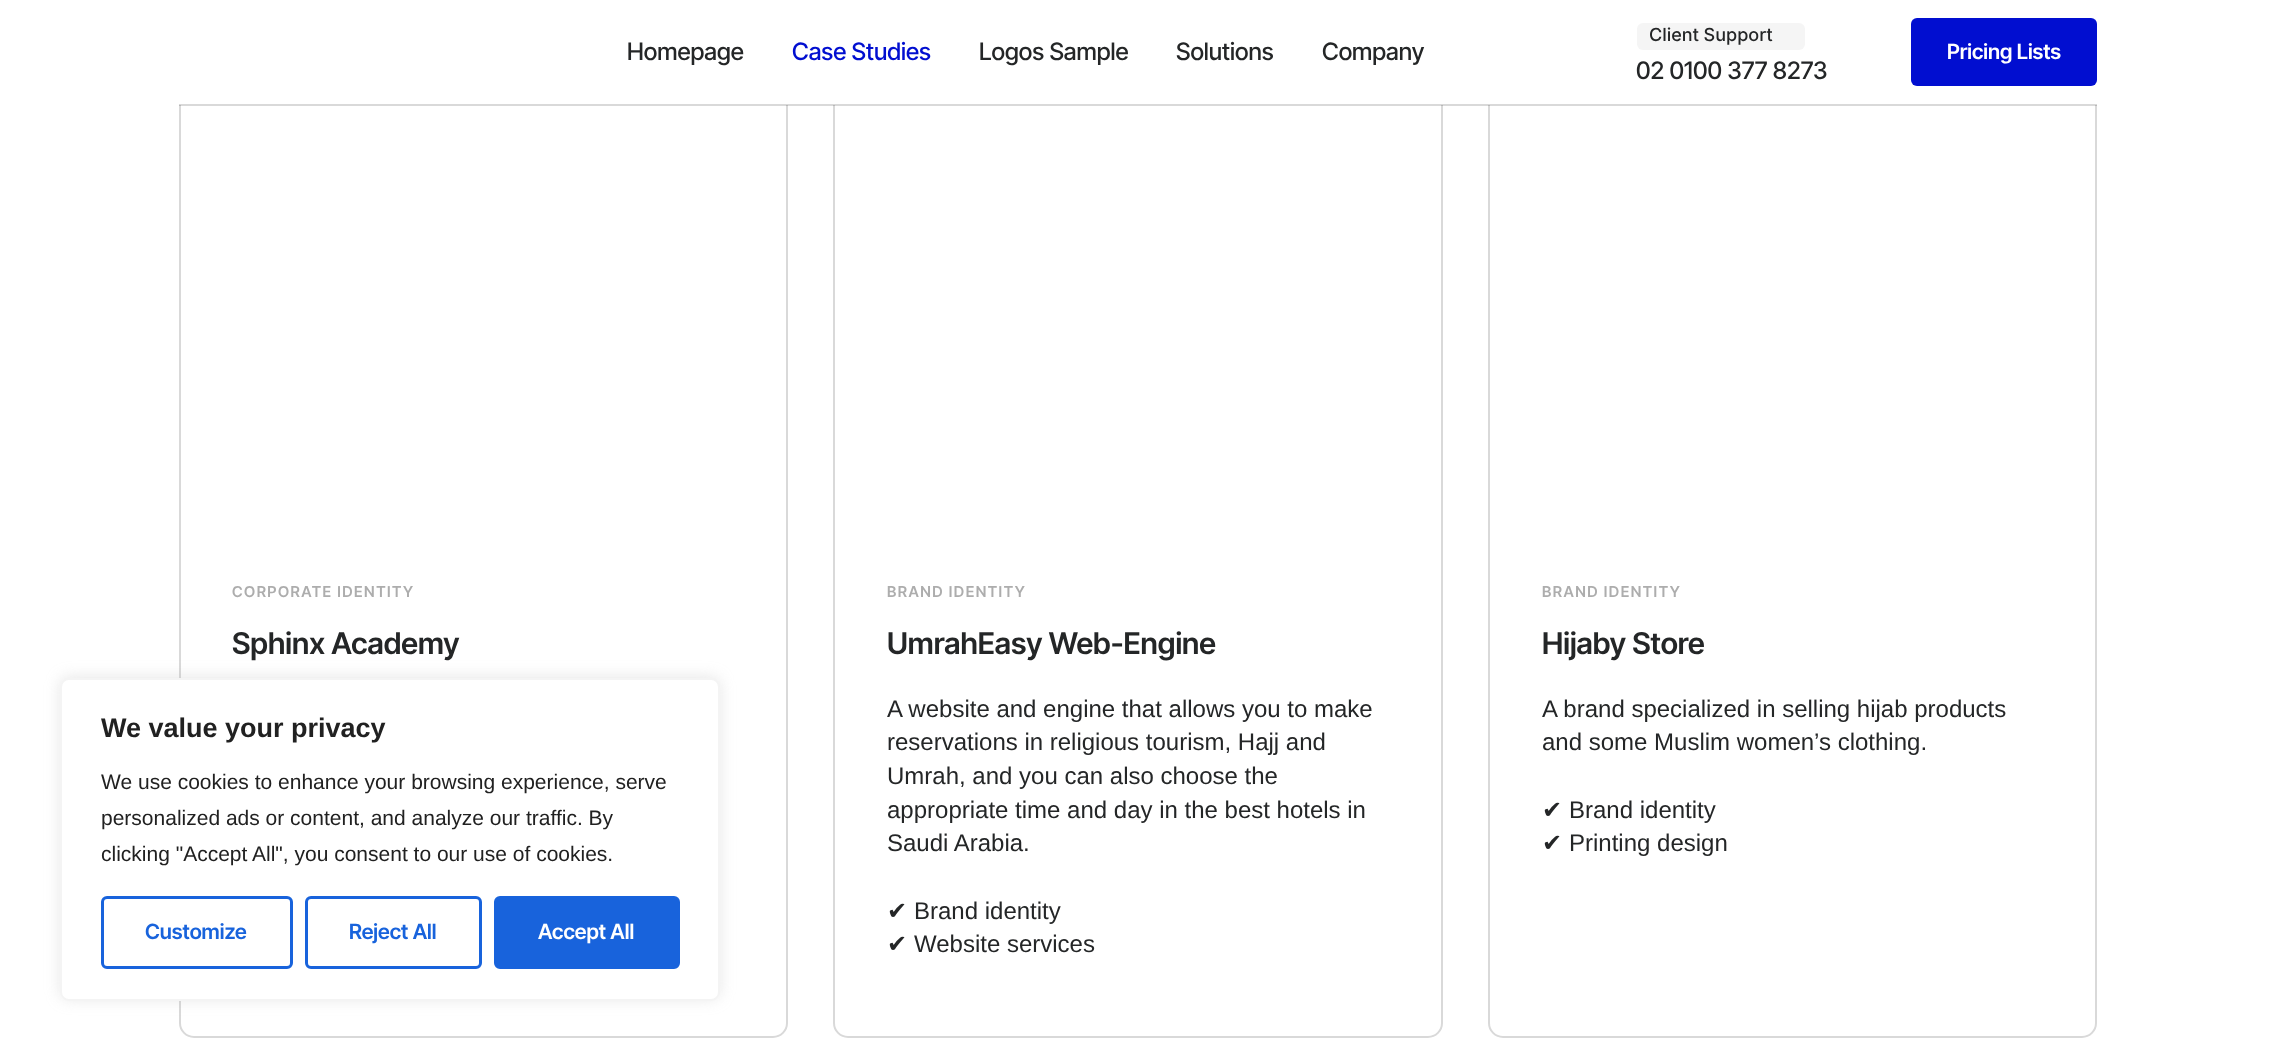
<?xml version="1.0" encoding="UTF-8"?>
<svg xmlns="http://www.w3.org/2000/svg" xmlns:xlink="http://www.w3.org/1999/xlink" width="2275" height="1060">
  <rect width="100%" height="100%" fill="#ffffff" />
  <rect x="180" y="-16" width="607" height="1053" rx="14" fill="none" stroke="#d9d9d9" stroke-width="2" />
  <rect x="834" y="-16" width="608" height="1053" rx="14" fill="none" stroke="#d9d9d9" stroke-width="2" />
  <rect x="1489" y="-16" width="607" height="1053" rx="14" fill="none" stroke="#d9d9d9" stroke-width="2" />
  <rect x="179" width="1918" height="105" fill="#ffffff" />
  <rect x="479" y="104" width="1095" height="2" fill="#000000" fill-opacity="0.15" />
  <rect x="1574" y="104" width="523" height="2" fill="#000000" fill-opacity="0.15" />
  <rect x="1637" y="23" width="168" height="27" rx="6" fill="#f5f5f5" />
  <rect x="1911" y="18" width="186" height="68" rx="6" fill="#010ed0" />
  <rect x="179" y="104" width="300" height="2" fill="#000000" fill-opacity="0.15" />
  <rect x="60" y="677" width="660" height="322" rx="9" fill="#acabab" fill-opacity="0.3" filter="blur(7.5px)" />
  <rect x="61" y="679" width="658" height="321" rx="8" fill="#ffffff" stroke="#f4f4f4" stroke-width="2" />
  <rect x="102.5" y="897.5" width="189" height="70" rx="4.5" fill="none" stroke="#1863dc" stroke-width="3" />
  <rect x="306.5" y="897.5" width="174" height="70" rx="4.5" fill="none" stroke="#1863dc" stroke-width="3" />
  <rect x="495.5" y="897.5" width="183" height="70" rx="4.5" fill="#1863dc" stroke="#1863dc" stroke-width="3" />
  <text x="627" y="60" style="font-family: Inter Tight; font-size: 24px; font-weight: 500; fill: #242627">Homepage</text>
  <text x="792" y="60" style="font-family: Inter Tight; font-size: 24px; font-weight: 500; fill: #010ed0">Case Studies</text>
  <text x="979" y="60" style="font-family: Inter Tight; font-size: 24px; font-weight: 500; fill: #242627">Logos Sample</text>
  <text x="1176" y="60" style="font-family: Inter Tight; font-size: 24px; font-weight: 500; fill: #242627">Solutions</text>
  <text x="1322" y="60" style="font-family: Inter Tight; font-size: 24px; font-weight: 500; fill: #242627">Company</text>
  <text x="1649" y="41" style="font-family: Inter; font-size: 18px; font-weight: 500; fill: #242627">Client Support</text>
  <text x="1636" y="79" style="font-family: Inter Tight; font-size: 24px; font-weight: 500; fill: #242627">02 0100 377 8273</text>
  <text x="1947" y="59" style="font-family: Inter Tight; font-size: 21px; font-weight: 600; fill: #ffffff">Pricing Lists</text>
  <text x="232" y="597" style="font-family: Inter Tight; font-size: 15px; font-weight: 600; letter-spacing: 1.5px; fill: #adadad">CORPORATE IDENTITY</text>
  <text x="232" y="654" style="font-family: Inter Tight; font-size: 30px; font-weight: 600; fill: #242627">Sphinx Academy</text>
  <text x="887" y="597" style="font-family: Inter Tight; font-size: 15px; font-weight: 600; letter-spacing: 1.5px; fill: #adadad">BRAND IDENTITY</text>
  <text x="887" y="654" style="font-family: Inter Tight; font-size: 30px; font-weight: 600; fill: #242627">UmrahEasy Web-Engine</text>
  <text x="887" y="717" style="font-family: Liberation Sans; font-size: 24px; fill: #242627">A website and engine that allows you to make</text>
  <text x="887" y="750" style="font-family: Liberation Sans; font-size: 24px; fill: #242627">reservations in religious tourism, Hajj and</text>
  <text x="887" y="784" style="font-family: Liberation Sans; font-size: 24px; fill: #242627">Umrah, and you can also choose the</text>
  <text x="887" y="818" style="font-family: Liberation Sans; font-size: 24px; fill: #242627">appropriate time and day in the best hotels in</text>
  <text x="887" y="851" style="font-family: Liberation Sans; font-size: 24px; fill: #242627">Saudi Arabia.</text>
  <text x="887" y="919" style="font-family: DejaVu Sans; font-size: 24px; fill: #242627">✔︎</text>
  <text x="914" y="919" style="font-family: Liberation Sans; font-size: 24px; fill: #242627">Brand identity</text>
  <text x="887" y="952" style="font-family: DejaVu Sans; font-size: 24px; fill: #242627">✔︎</text>
  <text x="914" y="952" style="font-family: Liberation Sans; font-size: 24px; fill: #242627">Website services</text>
  <text x="1542" y="597" style="font-family: Inter Tight; font-size: 15px; font-weight: 600; letter-spacing: 1.5px; fill: #adadad">BRAND IDENTITY</text>
  <text x="1542" y="654" style="font-family: Inter Tight; font-size: 30px; font-weight: 600; fill: #242627">Hijaby Store</text>
  <text x="1542" y="717" style="font-family: Liberation Sans; font-size: 24px; fill: #242627">A brand specialized in selling hijab products</text>
  <text x="1542" y="750" style="font-family: Liberation Sans; font-size: 24px; fill: #242627">and some Muslim women’s clothing.</text>
  <text x="1542" y="818" style="font-family: DejaVu Sans; font-size: 24px; fill: #242627">✔︎</text>
  <text x="1569" y="818" style="font-family: Liberation Sans; font-size: 24px; fill: #242627">Brand identity</text>
  <text x="1542" y="851" style="font-family: DejaVu Sans; font-size: 24px; fill: #242627">✔︎</text>
  <text x="1569" y="851" style="font-family: Liberation Sans; font-size: 24px; fill: #242627">Printing design</text>
  <text x="101" y="737" style="font-family: Liberation Sans; font-size: 27px; font-weight: bold; fill: #212121">We value your privacy</text>
  <text x="101" y="789" style="font-family: Liberation Sans; font-size: 21px; fill: #212121">We use cookies to enhance your browsing experience, serve</text>
  <text x="101" y="825" style="font-family: Liberation Sans; font-size: 21px; fill: #212121">personalized ads or content, and analyze our traffic. By</text>
  <text x="101" y="861" style="font-family: Liberation Sans; font-size: 21px; fill: #212121">clicking "Accept All", you consent to our use of cookies.</text>
  <text x="145" y="939" style="font-family: Inter Tight; font-size: 21px; font-weight: 600; fill: #1863dc">Customize</text>
  <text x="349" y="939" style="font-family: Inter Tight; font-size: 21px; font-weight: 600; fill: #1863dc">Reject All</text>
  <text x="538" y="939" style="font-family: Inter Tight; font-size: 21px; font-weight: 600; fill: #ffffff">Accept All</text>
</svg>
